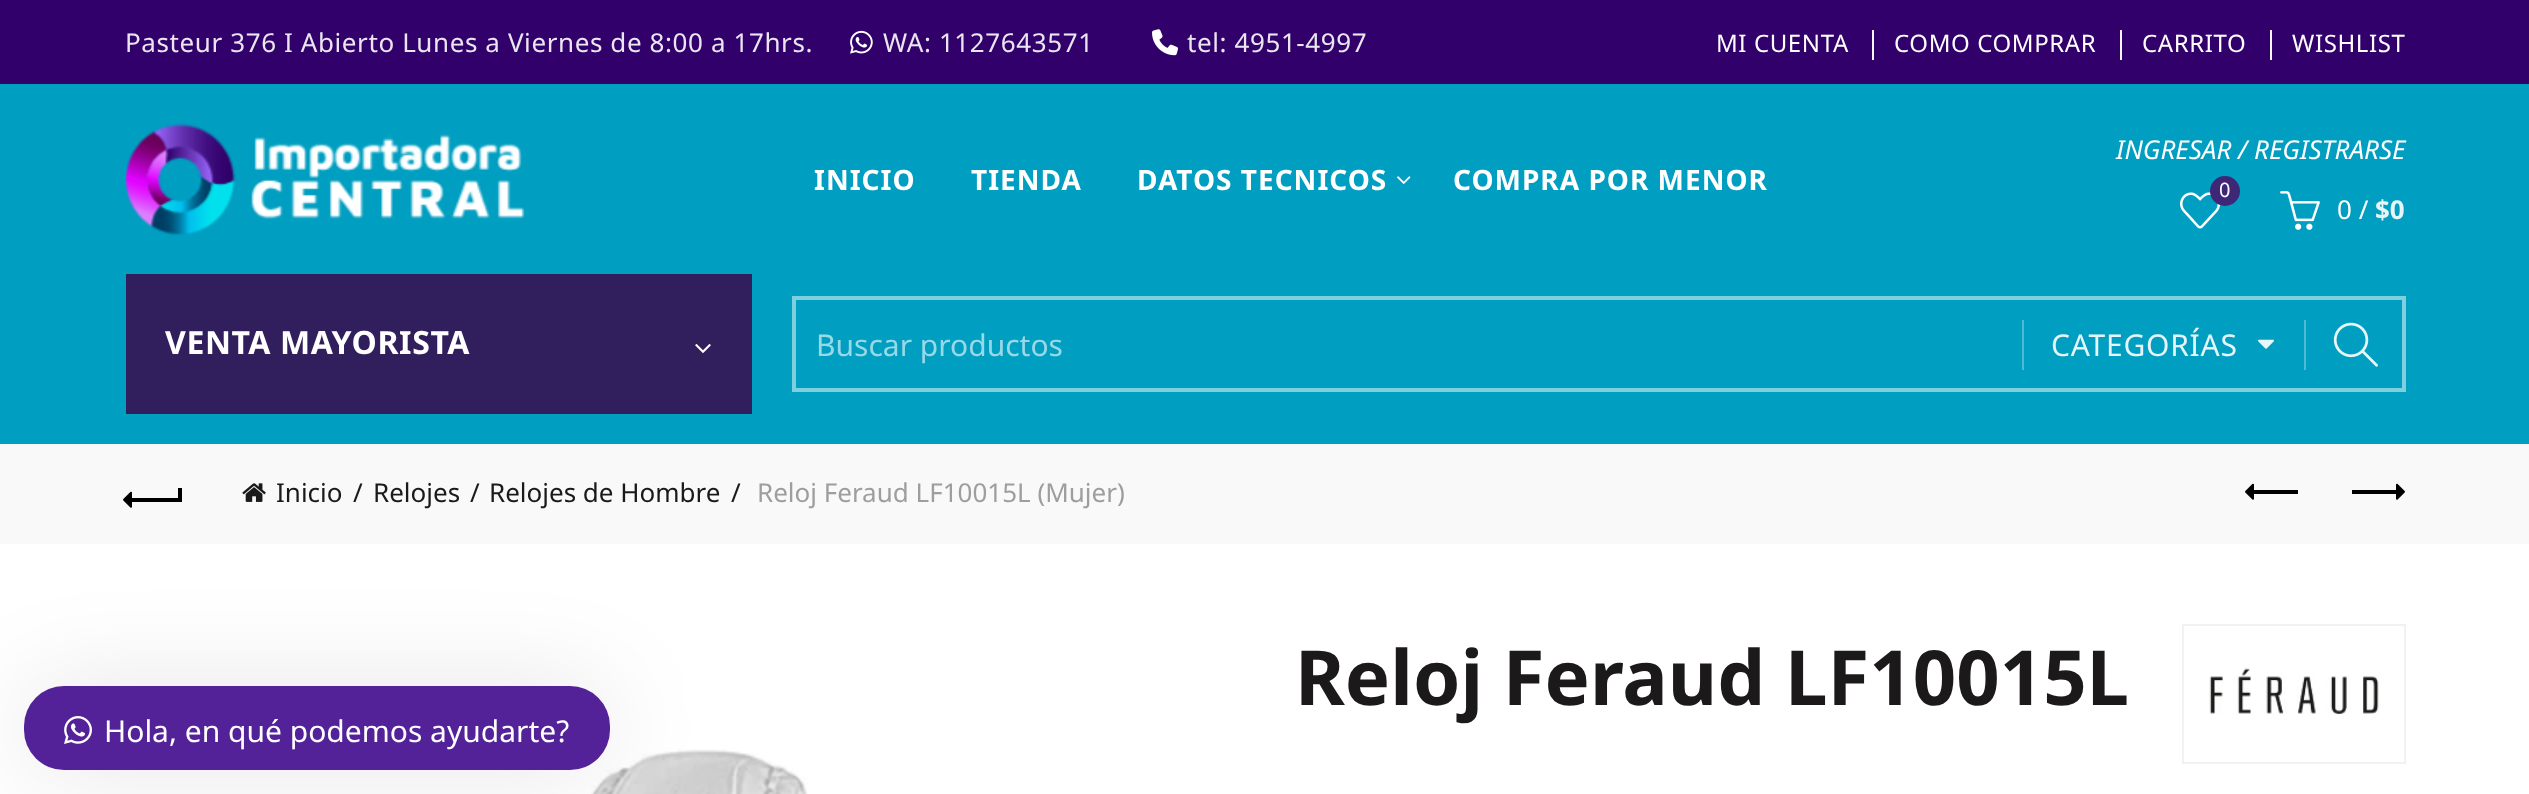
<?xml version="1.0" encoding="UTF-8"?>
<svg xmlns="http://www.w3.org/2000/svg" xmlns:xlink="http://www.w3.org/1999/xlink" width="2529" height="794">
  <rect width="100%" height="100%" fill="#ffffff" />
  <rect width="2529" height="84" fill="#31006a" />
  <image x="850" y="30" width="23" height="24" xlink:href="image1.png" />
  <image x="1152" y="29" width="26" height="27" xlink:href="image2.png" />
  <rect x="1872" y="30" width="2" height="30" fill="#f7f7f7" />
  <rect x="2120" y="30" width="2" height="30" fill="#f7f7f7" />
  <rect x="2270" y="30" width="2" height="30" fill="#f7f7f7" />
  <rect y="84" width="2529" height="360" fill="#009ec0" />
  <image x="126" y="123" width="399" height="113" xlink:href="image3.png" />
  <image x="1397" y="176" width="14" height="8" xlink:href="image4.png" />
  <image x="2180" y="192" width="40" height="37" xlink:href="image5.png" />
  <circle cx="2225" cy="191" r="15" fill="#3f2778" />
  <image x="2280" y="191" width="40" height="39" xlink:href="image6.png" />
  <rect x="126" y="274" width="626" height="140" fill="#311e5c" />
  <image x="695" y="344" width="16" height="9" xlink:href="image7.png" />
  <rect x="794" y="298" width="1610" height="92" fill="none" stroke="#80cfe0" stroke-width="4" />
  <rect x="2022" y="320" width="2" height="50" fill="#4dbbd3" />
  <image x="2258" y="339" width="16" height="10" xlink:href="image8.png" />
  <rect x="2304" y="320" width="2" height="50" fill="#4dbbd3" />
  <image x="2333" y="322" width="45" height="45" xlink:href="image9.png" />
  <rect y="444" width="2529" height="100" fill="#f9f9f9" />
  <rect x="130" y="498" width="50" height="4" fill="#000000" />
  <image x="123" y="491" width="9" height="17" xlink:href="image10.png" />
  <rect x="178" y="488" width="4" height="14" fill="#000000" />
  <image x="242" y="483" width="24" height="19" xlink:href="image11.png" />
  <rect x="2252" y="490" width="46" height="4" fill="#000000" />
  <image x="2245" y="483" width="9" height="17" xlink:href="image10.png" />
  <rect x="2352" y="490" width="46" height="4" fill="#000000" />
  <image x="2396" y="483" width="9" height="17" xlink:href="image12.png" />
  <rect x="2183" y="625" width="222" height="138" fill="none" stroke="#f1f1f1" stroke-width="2" />
  <image x="2209" y="668" width="170" height="47" xlink:href="image13.png" />
  <image x="591" y="749" width="217" height="45" xlink:href="image14.png" />
  <rect x="24" y="686" width="586" height="84" rx="40" fill="#000000" fill-opacity="0.1" filter="blur(50px)" />
  <rect x="24" y="686" width="586" height="84" rx="40" fill="#532198" />
  <image x="64" y="716" width="28" height="28" xlink:href="image15.png" />
  <text x="125" y="52" style="font-family: Noto Sans; font-size: 26px; letter-spacing: 0.6px; fill: #eae6f0">Pasteur 376 I Abierto Lunes a Viernes de 8:00 a 17hrs.</text>
  <text x="883" y="52" style="font-family: Noto Sans; font-size: 26px; letter-spacing: 0.6px; fill: #eae6f0">WA: 1127643571</text>
  <text x="1187" y="52" style="font-family: Noto Sans; font-size: 26px; letter-spacing: 0.6px; fill: #eae6f0">tel: 4951-4997</text>
  <text x="1716" y="52" style="font-family: Noto Sans; font-size: 24px; letter-spacing: 0.6px; fill: #ffffff">MI CUENTA</text>
  <text x="1894" y="52" style="font-family: Noto Sans; font-size: 24px; letter-spacing: 0.6px; fill: #ffffff">COMO COMPRAR</text>
  <text x="2142" y="52" style="font-family: Noto Sans; font-size: 24px; letter-spacing: 0.6px; fill: #ffffff">CARRITO</text>
  <text x="2292" y="52" style="font-family: Noto Sans; font-size: 24px; letter-spacing: 0.6px; fill: #ffffff">WISHLIST</text>
  <text x="814" y="190" style="font-family: Noto Sans; font-size: 28px; font-weight: bold; letter-spacing: 1px; fill: #ffffff">INICIO</text>
  <text x="971" y="190" style="font-family: Noto Sans; font-size: 28px; font-weight: bold; letter-spacing: 1px; fill: #ffffff">TIENDA</text>
  <text x="1137" y="190" style="font-family: Noto Sans; font-size: 28px; font-weight: bold; letter-spacing: 1px; fill: #ffffff">DATOS TECNICOS</text>
  <text x="1453" y="190" style="font-family: Noto Sans; font-size: 28px; font-weight: bold; letter-spacing: 1px; fill: #ffffff">COMPRA POR MENOR</text>
  <text x="2116" y="159" style="font-family: Noto Sans; font-size: 26px; font-style: italic; fill: #ffffff">INGRESAR / REGISTRARSE</text>
  <text x="2219" y="197" style="font-family: Noto Sans; font-size: 20px; fill: #ffffff">0</text>
  <text x="2337" y="219" style="font-family: Noto Sans; font-size: 26px; fill: #ffffff">0 /</text>
  <text x="2375" y="219" style="font-family: Noto Sans; font-size: 26px; font-weight: bold; fill: #e6f5f9">$0</text>
  <text x="165" y="354" style="font-family: Noto Sans; font-size: 32px; font-weight: bold; letter-spacing: 0.6px; fill: #ffffff">VENTA MAYORISTA</text>
  <text x="816" y="356" style="font-family: Noto Sans; font-size: 30px; fill: #99d8e6">Buscar productos</text>
  <text x="2051" y="356" style="font-family: Noto Sans; font-size: 30px; letter-spacing: 0.75px; fill: #e6f5f9">CATEGORÍAS</text>
  <text x="276" y="502" style="font-family: Noto Sans; font-size: 26px; fill: #1b1919">Inicio</text>
  <text x="353" y="502" style="font-family: Noto Sans; font-size: 26px; fill: #1b1919">/</text>
  <text x="373" y="502" style="font-family: Noto Sans; font-size: 26px; fill: #1b1919">Relojes</text>
  <text x="470" y="502" style="font-family: Noto Sans; font-size: 26px; fill: #1b1919">/</text>
  <text x="489" y="502" style="font-family: Noto Sans; font-size: 26px; fill: #1b1919">Relojes de Hombre</text>
  <text x="731" y="502" style="font-family: Noto Sans; font-size: 26px; fill: #1b1919">/</text>
  <text x="757" y="502" style="font-family: Noto Sans; font-size: 26px; fill: #9e9e9e">Reloj Feraud LF10015L (Mujer)</text>
  <text x="1295" y="705" style="font-family: Noto Sans; font-size: 76px; font-weight: bold; fill: #1b1919">Reloj Feraud LF10015L</text>
  <text x="104" y="742" style="font-family: Noto Sans; font-size: 30px; fill: #ffffff">Hola, en qué podemos ayudarte?</text>
</svg>
